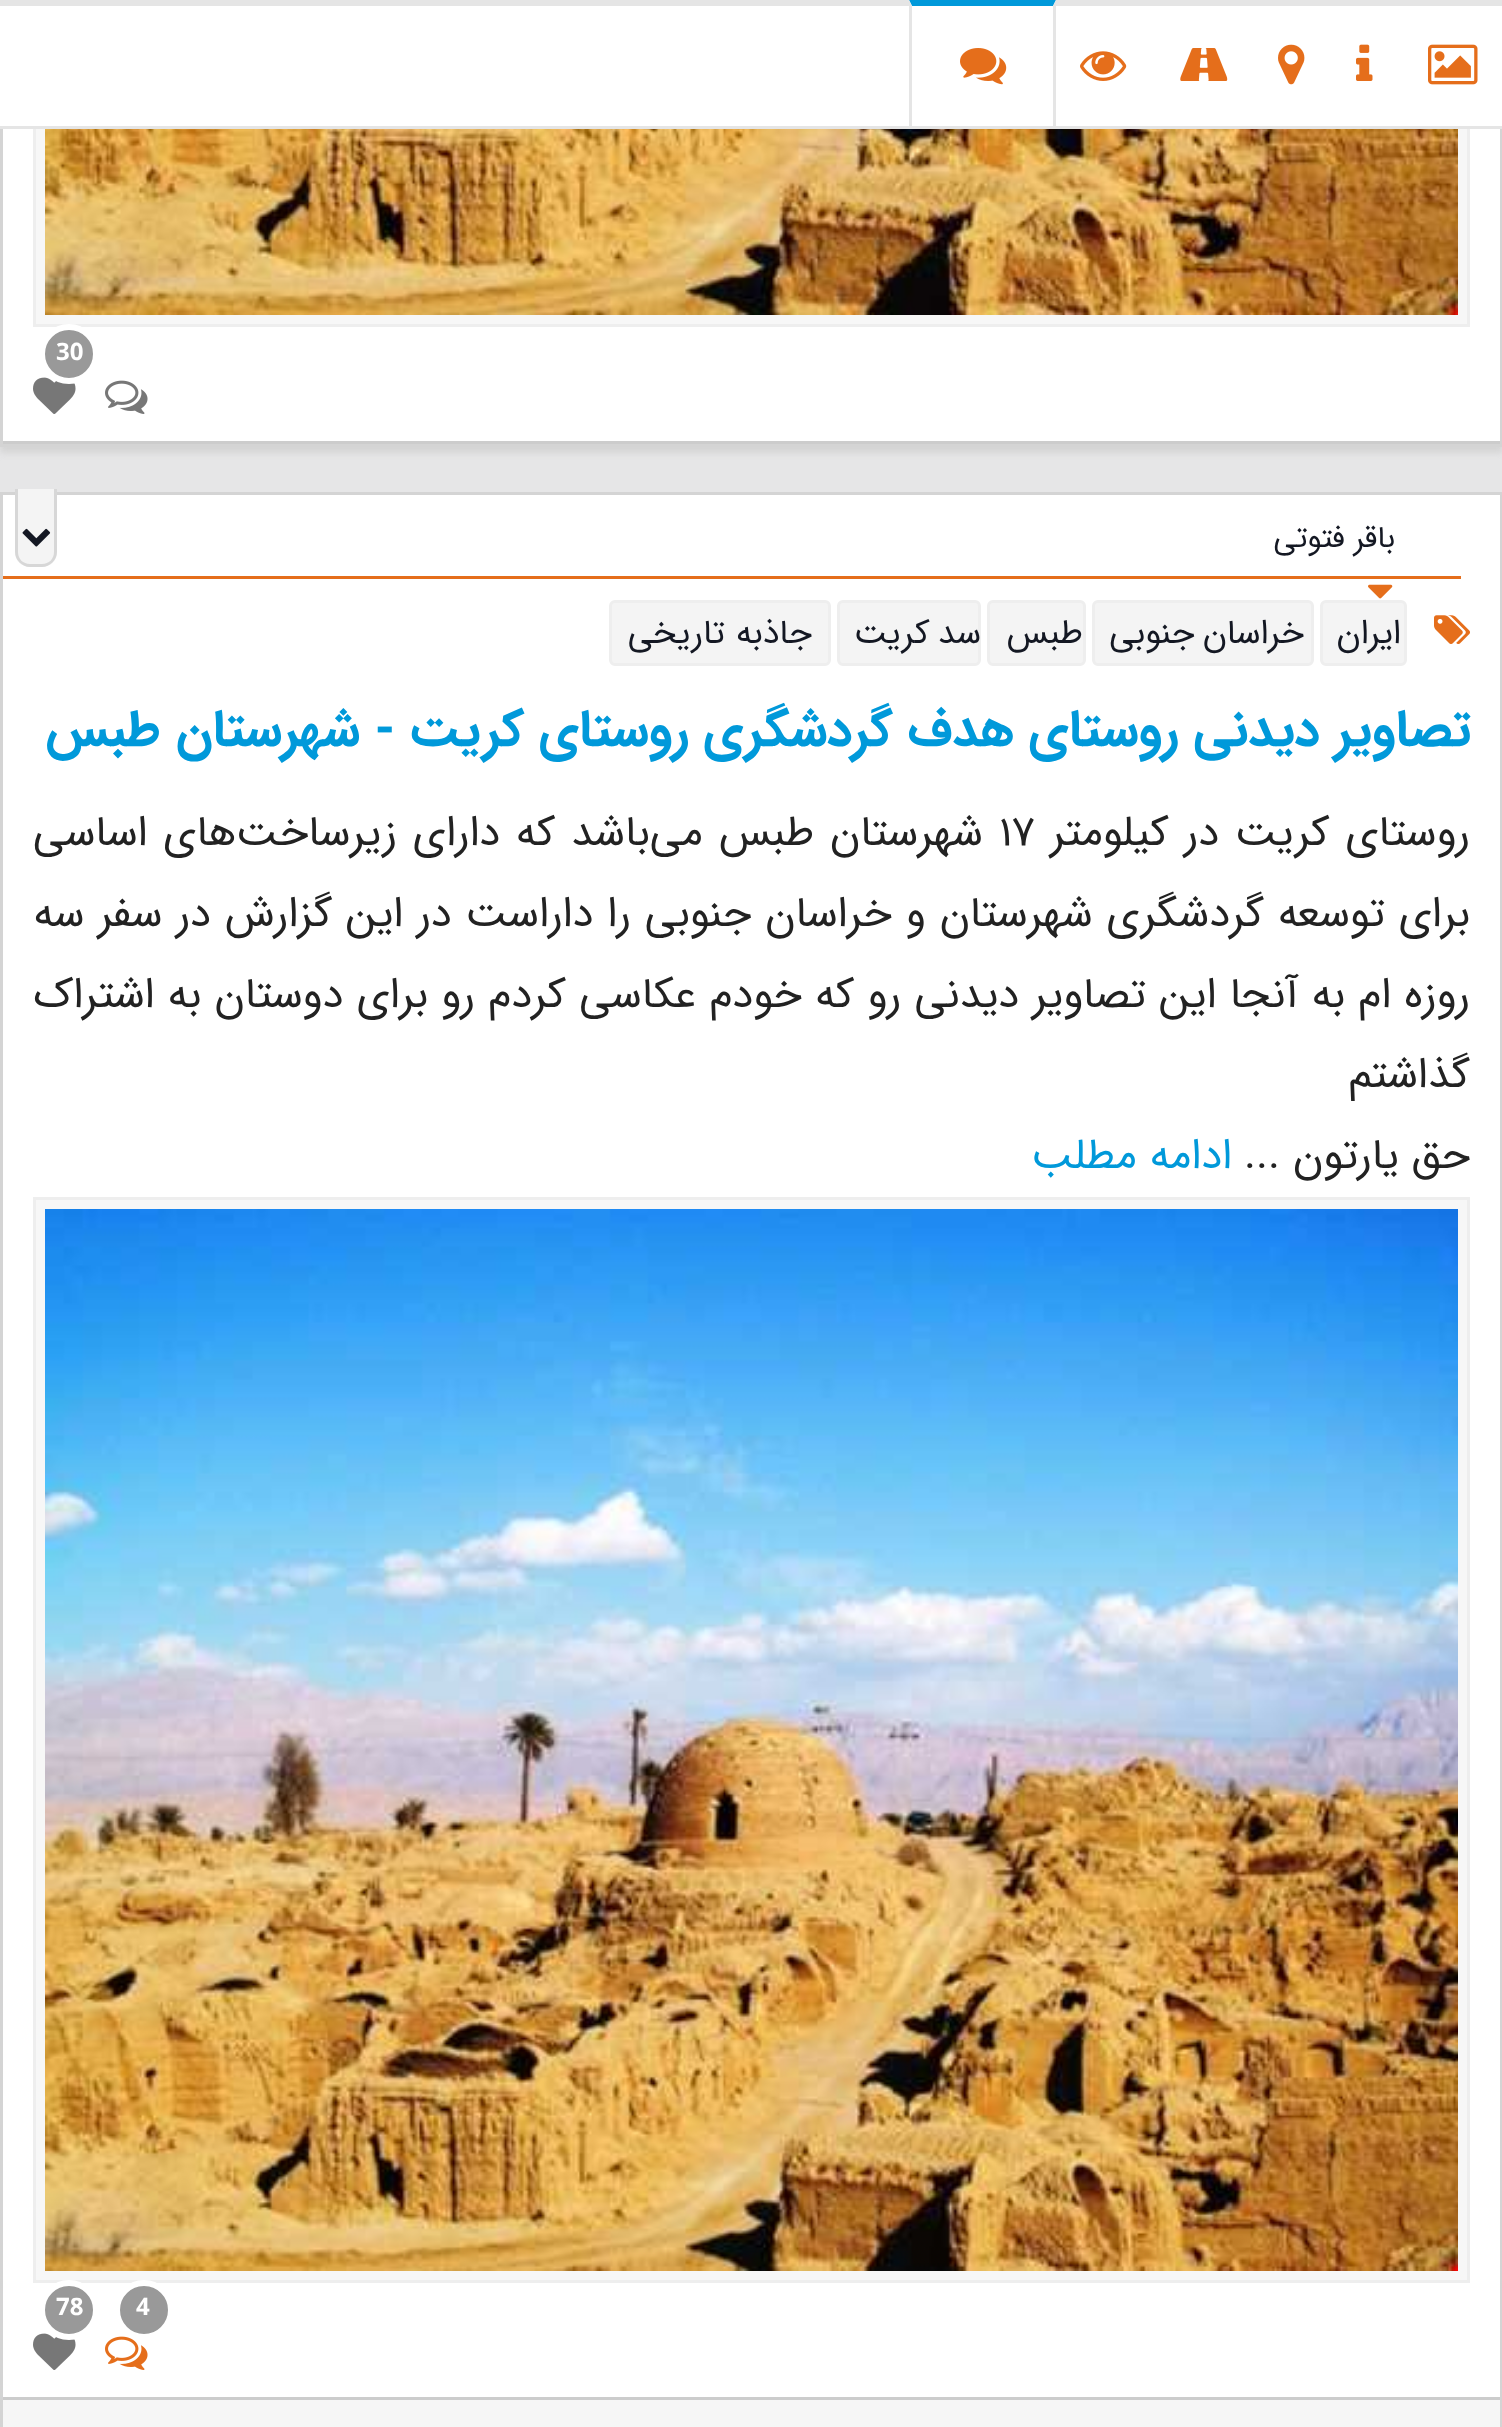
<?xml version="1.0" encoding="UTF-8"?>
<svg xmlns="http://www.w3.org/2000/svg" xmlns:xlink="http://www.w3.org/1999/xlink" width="1502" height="2427">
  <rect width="100%" height="100%" fill="#e6e6e7" />
  <rect y="-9" width="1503" height="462" fill="#d4d4d4" filter="blur(3px)" />
  <rect x="3" y="129" width="1497" height="312" fill="#ffffff" />
  <rect x="1.5" y="-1.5" width="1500" height="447" fill="none" stroke="#d4d4d4" stroke-width="3" />
  <rect x="36" y="129" width="1431" height="195" fill="#f7f7f7" />
  <rect x="34.5" y="-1.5" width="1434" height="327" fill="none" stroke="#eeeeee" stroke-width="3" />
  <rect y="6" width="909" height="120" fill="#ffffff" />
  <rect width="909" height="6" fill="#e5e5e5" />
  <rect y="126" width="1053" height="3" fill="#e5e5e5" />
  <rect x="1056" y="6" width="446" height="120" fill="#ffffff" />
  <rect x="1053" width="449" height="6" fill="#e5e5e5" />
  <rect x="1053" y="126" width="449" height="3" fill="#e5e5e5" />
  <image x="1428" y="44" width="50" height="41" xlink:href="image1.png" />
  <rect x="909" width="147" height="126" fill="#ffffff" />
  <path d="M 909 0 h 147 l -3 6 h -141 z" fill="#0099da" />
  <path d="M 1056 0 v 126 h -3 v -120 z" fill="#e5e5e5" />
  <path d="M 909 126 v -126 l 3 6 v 120 z" fill="#e5e5e5" />
  <image x="960" y="48" width="47" height="37" xlink:href="image2.png" />
  <image x="1356" y="44" width="17" height="37" xlink:href="image3.png" />
  <image x="1278" y="44" width="27" height="41" xlink:href="image4.png" />
  <image x="1180" y="48" width="48" height="33" xlink:href="image5.png" />
  <image x="1080" y="51" width="47" height="30" xlink:href="image6.png" />
  <image x="45" y="129" width="1413" height="186" xlink:href="image7.png" />
  <rect x="3" y="441" width="1497" height="3" fill="#cccccc" />
  <image x="33" y="377" width="43" height="37" xlink:href="image8.png" />
  <circle cx="69" cy="354" r="27" fill="#999999" stroke="#ffffff" stroke-width="6" />
  <image x="105" y="380" width="43" height="34" xlink:href="image9.png" />
  <rect x="3" y="495" width="1497" height="1902" fill="#ffffff" />
  <rect x="1.5" y="493.5" width="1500" height="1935" fill="none" stroke="#d4d4d4" stroke-width="3" />
  <rect x="3" y="576" width="1458" height="3" fill="#e56e1b" />
  <path d="M 15 489 h 42 v 63 c 0 8.5 -6.5 15 -15 15 h -12 c -8.5 0 -15 -6.5 -15 -15 z" fill="#f4f4f4" />
  <path d="M 15 489 h 42 v 63 c 0 8 -7 15 -15 15 h -12 c -8 0 -15 -7 -15 -15 z m 3 0 h 36 v 63 c 0 7 -5 12 -12 12 h -12 c -7 0 -12 -5 -12 -12 z" fill="#d7d7d7" fill-rule="evenodd" />
  <image x="22" y="528" width="29" height="19" xlink:href="image10.png" />
  <image x="1368" y="584" width="25" height="15" xlink:href="image11.png" />
  <image x="1434" y="615" width="36" height="29" xlink:href="image12.png" />
  <rect x="1321.5" y="601.5" width="84" height="63" rx="4.5" fill="#f4f4f4" stroke="#eeeeee" stroke-width="3" />
  <rect x="1093.5" y="601.5" width="219" height="63" rx="4.5" fill="#f4f4f4" stroke="#eeeeee" stroke-width="3" />
  <rect x="988.5" y="601.5" width="96" height="63" rx="4.5" fill="#f4f4f4" stroke="#eeeeee" stroke-width="3" />
  <rect x="838.5" y="601.5" width="141" height="63" rx="4.5" fill="#f4f4f4" stroke="#eeeeee" stroke-width="3" />
  <rect x="610.5" y="601.5" width="219" height="63" rx="4.5" fill="#f4f4f4" stroke="#eeeeee" stroke-width="3" />
  <rect x="34.5" y="1198.5" width="1434" height="1083" fill="#f7f7f7" stroke="#eeeeee" stroke-width="3" />
  <image x="45" y="1209" width="1413" height="1062" xlink:href="image13.png" />
  <rect x="3" y="2397" width="1497" height="3" fill="#cccccc" />
  <image x="105" y="2336" width="43" height="34" xlink:href="image14.png" />
  <circle cx="144" cy="2310" r="27" fill="#999999" stroke="#ffffff" stroke-width="6" />
  <image x="33" y="2333" width="43" height="37" xlink:href="image8.png" />
  <circle cx="69" cy="2310" r="27" fill="#999999" stroke="#ffffff" stroke-width="6" />
  <rect x="3" y="2400" width="1497" height="27" fill="#f6f6f6" />
  <text x="56" y="360" style="font-family: Open Sans; font-size: 24px; font-weight: bold; fill: #ffffff">30</text>
  <text x="1395" y="547" style="font-family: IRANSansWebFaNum; font-size: 30.5px; direction: rtl; fill: #141823">باقر فتوتی</text>
  <text x="1401" y="643" style="font-family: IRANSansWebFaNum; font-size: 34px; direction: rtl; fill: #141823">ایران</text>
  <text x="1304" y="643" word-spacing="-2" style="font-family: IRANSansWebFaNum; font-size: 34px; direction: rtl; fill: #141823">خراسان جنوبی</text>
  <text x="1083" y="643" style="font-family: IRANSansWebFaNum; font-size: 34px; direction: rtl; fill: #141823">طبس</text>
  <text x="981" y="643" word-spacing="-2" style="font-family: IRANSansWebFaNum; font-size: 34px; direction: rtl; fill: #141823">سد کریت</text>
  <text x="812" y="643" word-spacing="1" style="font-family: IRANSansWebFaNum; font-size: 34px; direction: rtl; fill: #141823">جاذبه تاریخی</text>
  <text x="1471" y="745" style="font-family: IRANSansWebFaNum; font-size: 51px; font-weight: bold; direction: rtl; fill: #0099da">تصاویر دیدنی روستای هدف گردشگری روستای کریت - شهرستان طبس</text>
  <text x="1470" y="845" word-spacing="3" style="font-family: IRANSansWebFaNum; font-size: 42.5px; direction: rtl; fill: #222222">روستای کریت در کیلومتر</text>
  <text x="999" y="845" style="font-family: IRANSansWebFaNum; font-size: 42.5px; fill: #222222">17</text>
  <text x="983" y="845" word-spacing="3" style="font-family: IRANSansWebFaNum; font-size: 42.5px; direction: rtl; fill: #222222">شهرستان طبس می‌باشد که دارای زیرساخت‌های اساسی</text>
  <text x="1470" y="926" word-spacing="1.1" style="font-family: IRANSansWebFaNum; font-size: 42.5px; direction: rtl; fill: #222222">برای توسعه گردشگری شهرستان و خراسان جنوبی را داراست در این گزارش در سفر سه</text>
  <text x="1470" y="1007" word-spacing="0.5" style="font-family: IRANSansWebFaNum; font-size: 42.5px; direction: rtl; fill: #222222">روزه ام به آنجا این تصاویر دیدنی رو که خودم عکاسی کردم رو برای دوستان به اشتراک</text>
  <text x="1470" y="1087" style="font-family: IRANSansWebFaNum; font-size: 42.5px; direction: rtl; fill: #222222">گذاشتم</text>
  <text x="1470" y="1168" style="font-family: IRANSansWebFaNum; font-size: 42.5px; direction: rtl; fill: #222222">حق یارتون</text>
  <text x="1244" y="1168" style="font-family: IRANSansWebFaNum; font-size: 42.5px; fill: #222222">...</text>
  <text x="1232" y="1168" style="font-family: IRANSansWebFaNum; font-size: 42.5px; direction: rtl; fill: #0099da">ادامه مطلب</text>
  <text x="136" y="2315" style="font-family: Open Sans; font-size: 24px; font-weight: bold; fill: #ffffff">4</text>
  <text x="56" y="2315" style="font-family: Open Sans; font-size: 24px; font-weight: bold; fill: #ffffff">78</text>
</svg>
